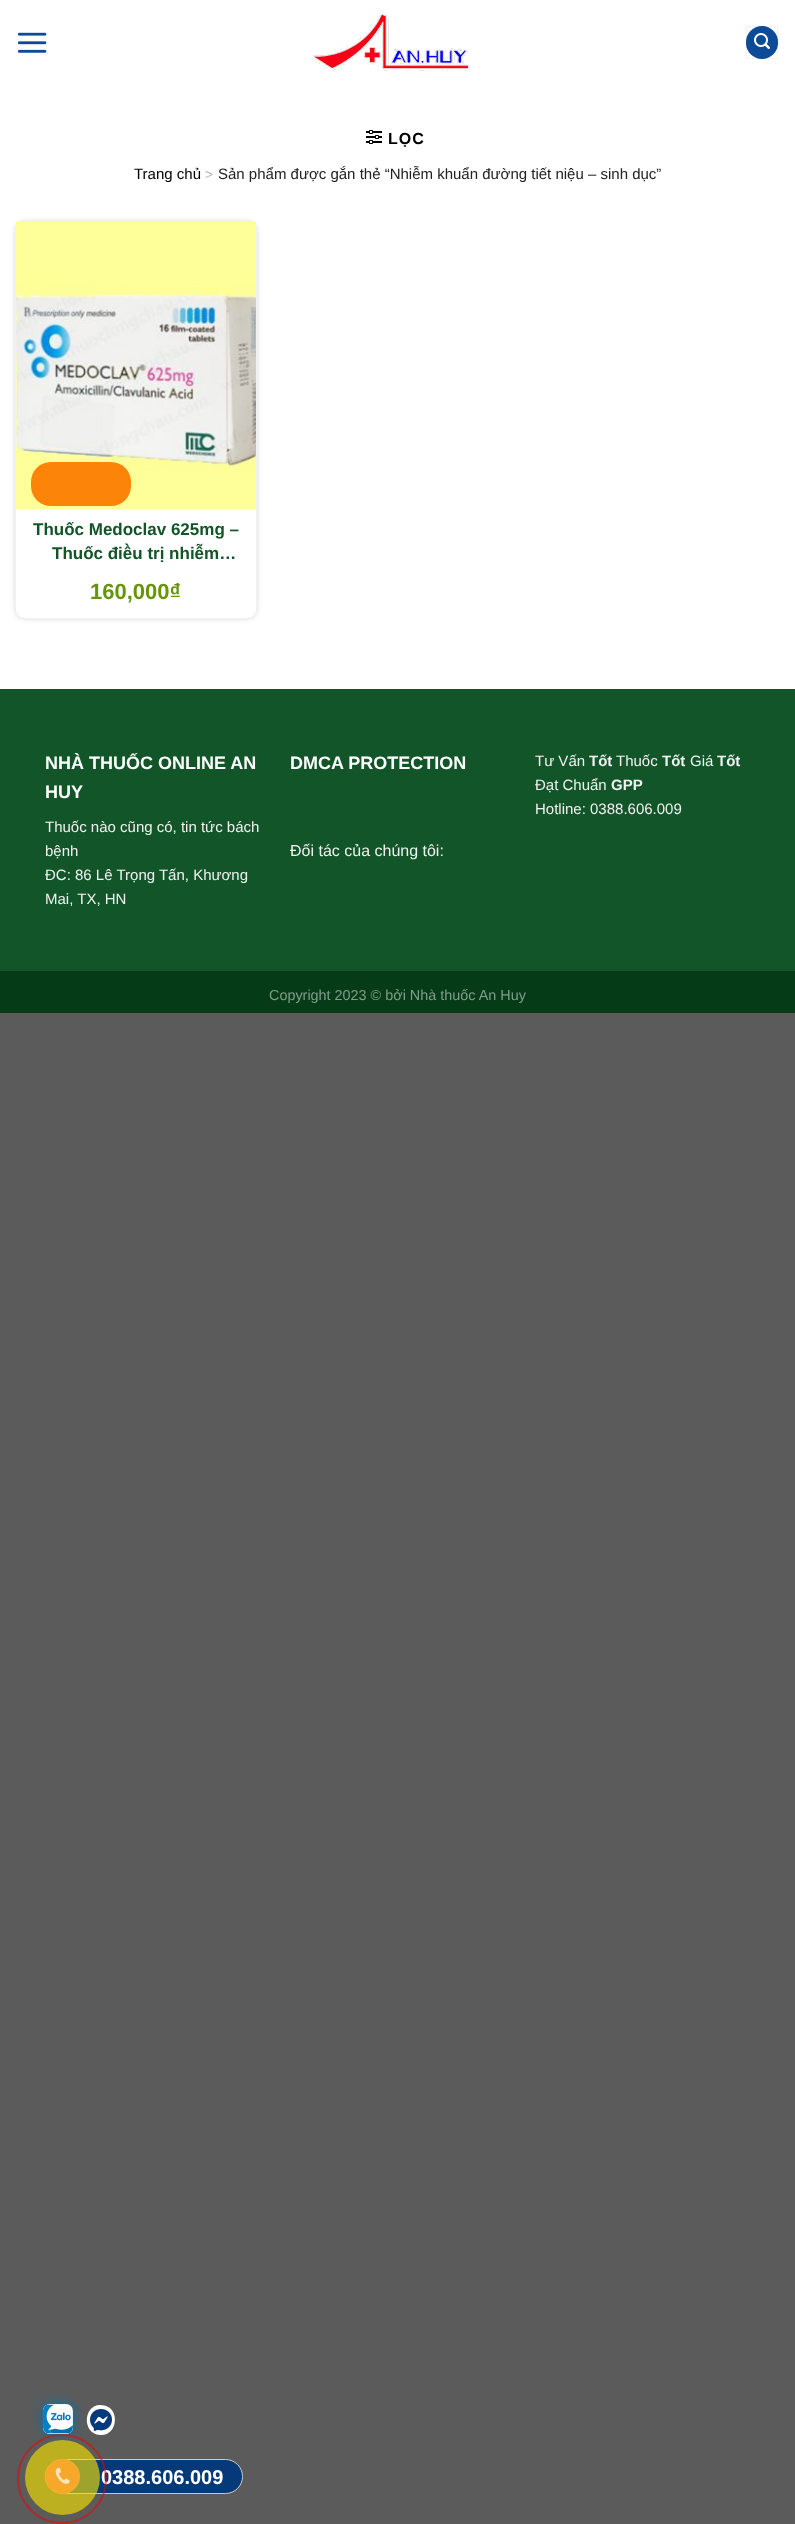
<?xml version="1.0" encoding="UTF-8"?>
<svg xmlns="http://www.w3.org/2000/svg" xmlns:xlink="http://www.w3.org/1999/xlink" width="795" height="2524">
  <rect width="100%" height="100%" fill="#5b5b5b" />
  <rect width="795" height="689" fill="#ffffff" />
  <image x="17" y="32" width="30" height="21" xlink:href="image1.png" />
  <image x="313" y="14" width="157" height="57" xlink:href="image2.png" />
  <rect x="746" y="26" width="32" height="33" rx="16" fill="#0d4b98" />
  <rect x="746.5" y="26.5" width="31" height="32" fill="none" stroke="#000000" stroke-opacity="0.05" />
  <image x="754" y="33" width="16" height="16" xlink:href="image3.png" />
  <image x="366" y="130" width="16" height="14" xlink:href="image4.png" />
  <rect x="15" y="221" width="242" height="398" rx="10" fill="#cacaca" fill-opacity="0.69" filter="blur(2.5px)" />
  <rect x="15.5" y="221.5" width="241" height="397" rx="9.5" fill="#ffffff" stroke="#f2f2f2" />
  <image x="16" y="222" width="240" height="287" xlink:href="image5.png" />
  <rect x="31" y="462" width="100" height="44" rx="20" fill="#fc7d00" fill-opacity="0.95" />
  <rect y="689" width="795" height="282" fill="#115528" />
  <rect y="971" width="795" height="42" fill="#053b17" />
  <path d="M 100 2405 l 4.5 0.5 c 16 3.5 13 31 -4.5 29.5 c -18.5 -1.5 -16.5 -30 0 -30 z" fill="#ffffff" />
  <image x="90" y="2409" width="22" height="22" xlink:href="image7.png" />
  <rect x="43" y="2404" width="30" height="30" rx="7" fill="#0172b1" filter="blur(6px)" />
  <rect x="43" y="2404" width="30" height="30" rx="7" fill="#ffffff" />
  <image x="43" y="2404" width="30" height="30" xlink:href="image6.png" />
  <rect x="45.5" y="2459.5" width="197" height="34" rx="17" fill="#06397a" stroke="#cccccc" />
  <text x="388" y="144" style="font-family: Liberation Sans; font-size: 16px; font-weight: bold; letter-spacing: 1px; fill: #000000">LỌC</text>
  <text x="134" y="179" style="font-family: Liberation Sans; font-size: 15px; fill: #000000">Trang chủ</text>
  <text x="205" y="179" style="font-family: Liberation Sans; font-size: 14px; fill: #b2b2b2">&gt;</text>
  <text x="218" y="179" style="font-family: Liberation Sans; font-size: 15px; fill: #222222">Sản phẩm được gắn thẻ “Nhiễm khuẩn đường tiết niệu – sinh dục”</text>
  <text x="33" y="535" style="font-family: Liberation Sans; font-size: 17px; font-weight: bold; fill: #115528">Thuốc Medoclav 625mg –</text>
  <text x="52" y="559" style="font-family: Liberation Sans; font-size: 17px; font-weight: bold; fill: #115528">Thuốc điều trị nhiễm…</text>
  <text x="90" y="599" style="font-family: Liberation Sans; font-size: 22px; font-weight: bold; fill: #679509">160,000₫</text>
  <text x="45" y="769" style="font-family: Liberation Sans; font-size: 18px; font-weight: bold; fill: #ffffff">NHÀ THUỐC ONLINE AN</text>
  <text x="45" y="798" style="font-family: Liberation Sans; font-size: 18px; font-weight: bold; fill: #ffffff">HUY</text>
  <text x="45" y="832" style="font-family: Liberation Sans; font-size: 15px; fill: #f1f1f1">Thuốc nào cũng có, tin tức bách</text>
  <text x="45" y="856" style="font-family: Liberation Sans; font-size: 15px; fill: #f1f1f1">bệnh</text>
  <text x="45" y="880" style="font-family: Liberation Sans; font-size: 15px; fill: #f1f1f1">ĐC: 86 Lê Trọng Tấn, Khương</text>
  <text x="45" y="904" style="font-family: Liberation Sans; font-size: 15px; fill: #f1f1f1">Mai, TX, HN</text>
  <text x="290" y="769" style="font-family: Liberation Sans; font-size: 18px; font-weight: bold; fill: #ffffff">DMCA PROTECTION</text>
  <text x="290" y="856" style="font-family: Liberation Sans; font-size: 16px; fill: #f1f1f1">Đối tác của chúng tôi:</text>
  <text x="535" y="766" style="font-family: Liberation Sans; font-size: 15px; fill: #f1f1f1">Tư Vấn</text>
  <text x="589" y="766" style="font-family: Liberation Sans; font-size: 15px; font-weight: bold; fill: #f1f1f1">Tốt</text>
  <text x="616" y="766" style="font-family: Liberation Sans; font-size: 15px; fill: #f1f1f1">Thuốc</text>
  <text x="662" y="766" style="font-family: Liberation Sans; font-size: 15px; font-weight: bold; fill: #f1f1f1">Tốt</text>
  <text x="690" y="766" style="font-family: Liberation Sans; font-size: 15px; fill: #f1f1f1">Giá</text>
  <text x="717" y="766" style="font-family: Liberation Sans; font-size: 15px; font-weight: bold; fill: #f1f1f1">Tốt</text>
  <text x="535" y="790" style="font-family: Liberation Sans; font-size: 15px; fill: #f1f1f1">Đạt Chuẩn</text>
  <text x="611" y="790" style="font-family: Liberation Sans; font-size: 15px; font-weight: bold; fill: #f1f1f1">GPP</text>
  <text x="535" y="814" style="font-family: Liberation Sans; font-size: 15px; fill: #f1f1f1">Hotline: 0388.606.009</text>
  <text x="269" y="1000" style="font-family: Liberation Sans; font-size: 14.4px; fill: #829d8b">Copyright 2023 © bởi Nhà thuốc An Huy</text>
  <text x="101" y="2484" style="font-family: Liberation Sans; font-size: 20px; font-weight: bold; fill: #ffffff">0388.606.009</text>
  <circle cx="62" cy="2479" r="44" fill="none" stroke="#f20000" stroke-opacity="0.5" stroke-width="2" />
  <circle cx="62.5" cy="2477.5" r="37.5" fill="#f2df00" fill-opacity="0.64" />
  <circle cx="62.5" cy="2476.5" r="17.5" fill="#ffa92c" fill-opacity="0.7" />
  <image x="45" y="2459" width="35" height="35" xlink:href="image8.png" />
</svg>
